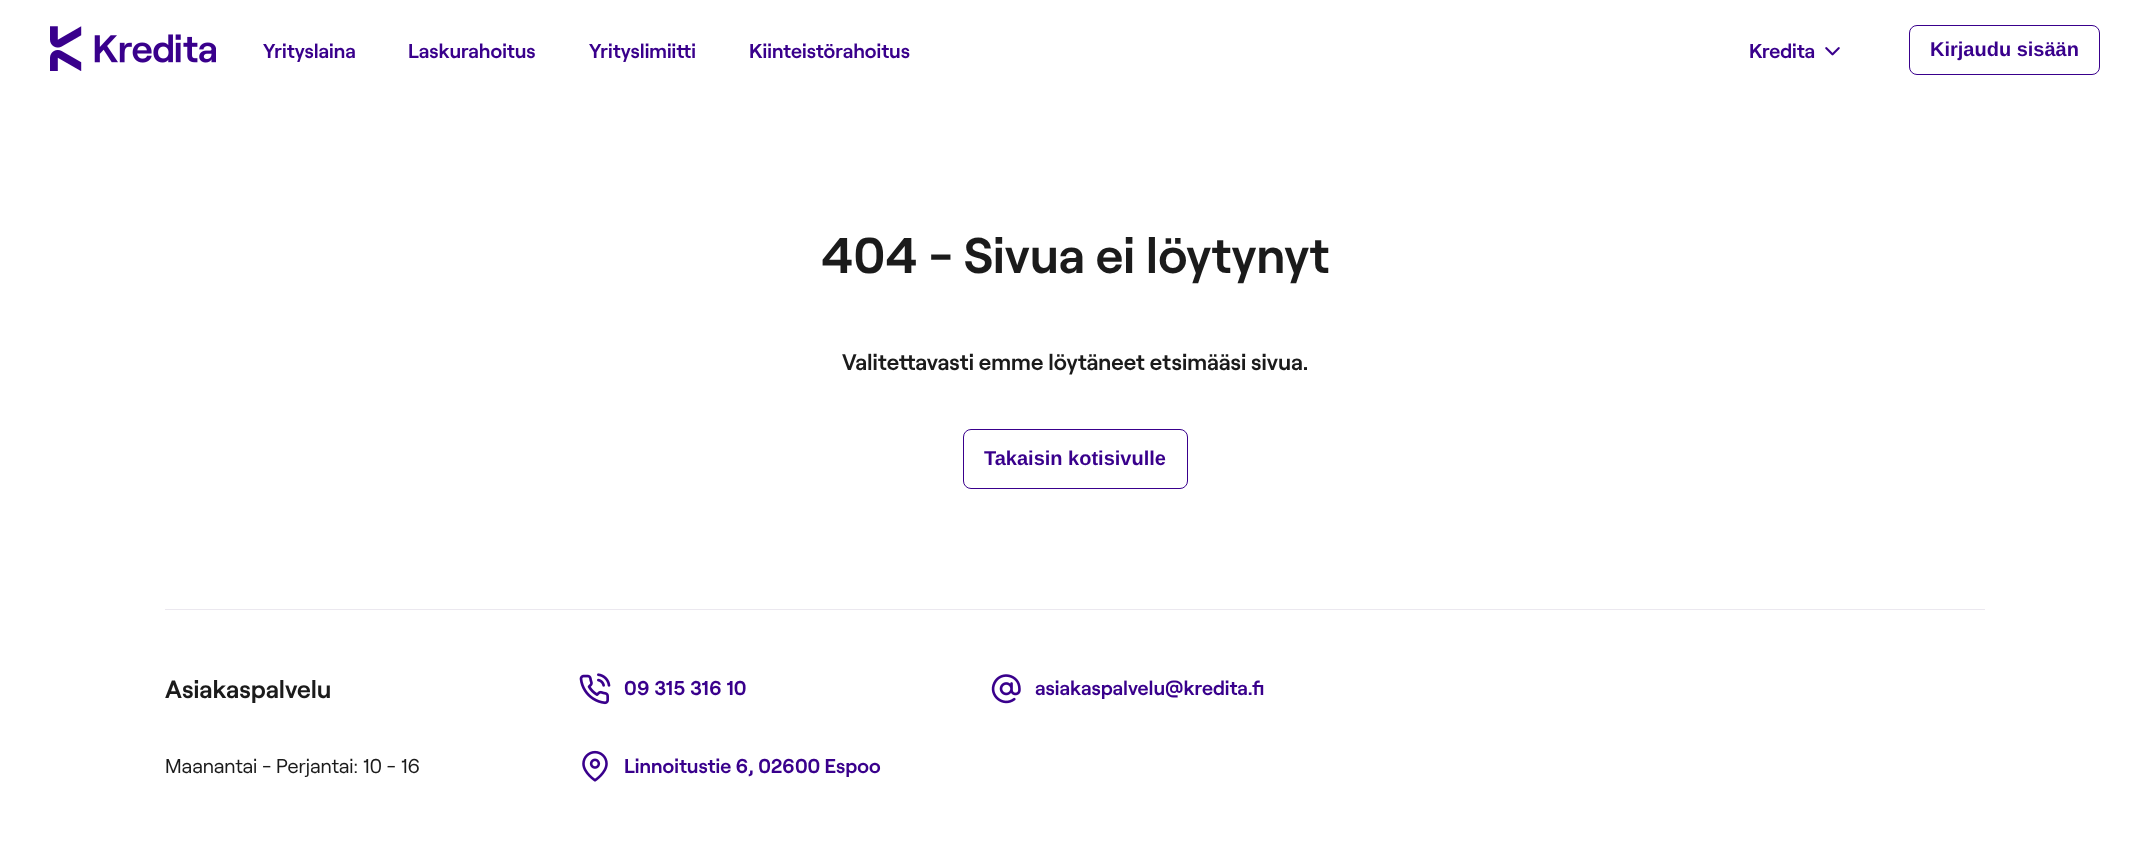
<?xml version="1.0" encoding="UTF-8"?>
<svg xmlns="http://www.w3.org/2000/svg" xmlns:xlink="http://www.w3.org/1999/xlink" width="2150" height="862">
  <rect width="100%" height="100%" fill="#ffffff" />
  <image x="50" y="26" width="166" height="45" xlink:href="image1.png" />
  <image x="1825" y="47" width="15" height="9" xlink:href="image2.png" />
  <rect x="1909.5" y="25.5" width="190" height="49" rx="7.5" fill="none" stroke="#39008c" />
  <rect x="963.5" y="429.5" width="224" height="59" rx="7.5" fill="none" stroke="#39008c" />
  <rect x="165" y="609" width="1820" height="1" fill="#ebe8ef" />
  <image x="579" y="673" width="32" height="32" xlink:href="image3.png" />
  <image x="991" y="674" width="30" height="30" xlink:href="image4.png" />
  <image x="582" y="750" width="26" height="32" xlink:href="image5.png" />
  <text x="263" y="58" style="font-family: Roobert; font-size: 20px; font-weight: 600; fill: #39008c">Yrityslaina</text>
  <text x="408" y="58" style="font-family: Roobert; font-size: 20px; font-weight: 600; fill: #39008c">Laskurahoitus</text>
  <text x="589" y="58" style="font-family: Roobert; font-size: 20px; font-weight: 600; fill: #39008c">Yrityslimiitti</text>
  <text x="749" y="58" style="font-family: Roobert; font-size: 20px; font-weight: 600; fill: #39008c">Kiinteistörahoitus</text>
  <text x="1749" y="58" style="font-family: Roobert; font-size: 20px; font-weight: 600; fill: #39008c">Kredita</text>
  <text x="1930" y="56" style="font-family: Liberation Sans; font-size: 20px; font-weight: bold; fill: #39008c">Kirjaudu sisään</text>
  <text x="821" y="273" style="font-family: Roobert; font-size: 50px; font-weight: 600; fill: #1b1b1b">404 - Sivua ei löytynyt</text>
  <text x="842" y="370" style="font-family: Roobert; font-size: 22.5px; font-weight: 600; fill: #1b1b1b">Valitettavasti emme löytäneet etsimääsi sivua.</text>
  <text x="984" y="465" style="font-family: Liberation Sans; font-size: 20px; font-weight: bold; fill: #39008c">Takaisin kotisivulle</text>
  <text x="165" y="698" style="font-family: Roobert; font-size: 25px; font-weight: 600; fill: #1b1b1b">Asiakaspalvelu</text>
  <text x="165" y="773" style="font-family: Roobert; font-size: 20px; fill: #1b1b1b">Maanantai - Perjantai: 10 - 16</text>
  <text x="624" y="695" style="font-family: Roobert; font-size: 20px; font-weight: 600; fill: #39008c">09 315 316 10</text>
  <text x="1035" y="695" style="font-family: Roobert; font-size: 20px; font-weight: 600; fill: #39008c">asiakaspalvelu@kredita.fi</text>
  <text x="624" y="773" style="font-family: Roobert; font-size: 20px; font-weight: 600; fill: #39008c">Linnoitustie 6, 02600 Espoo</text>
</svg>
